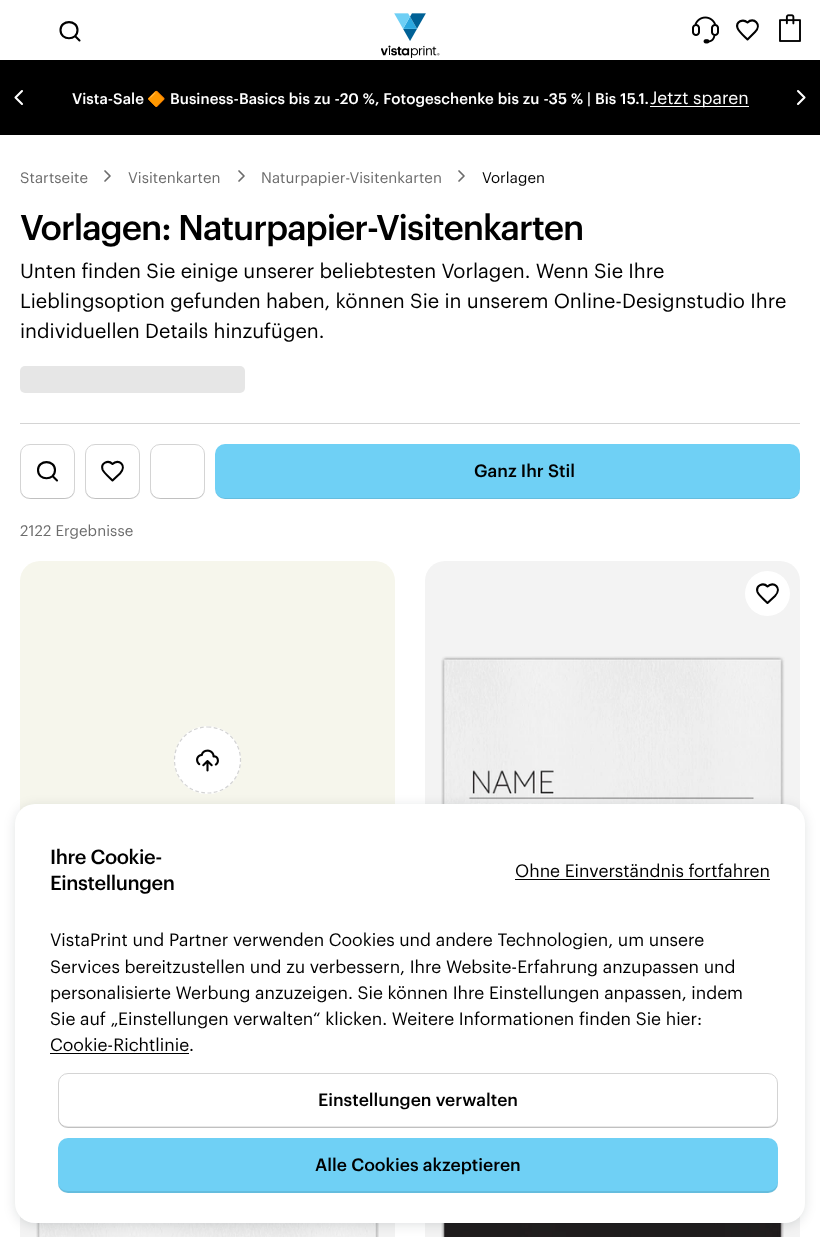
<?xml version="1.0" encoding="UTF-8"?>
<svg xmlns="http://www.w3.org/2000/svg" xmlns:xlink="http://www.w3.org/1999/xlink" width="820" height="1237">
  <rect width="100%" height="100%" fill="#ffffff" />
  <path d="M 79.5 40.5 l -4.5 -4.5 m 2.5 -6 c 0 11 -17 11 -17 0 c 0 -10.5 17 -10.5 17 0 z" fill="none" stroke="#000000" stroke-width="2.1" stroke-linecap="round" stroke-linejoin="round" />
  <image x="381" y="13" width="59" height="45" xlink:href="image1.png" />
  <image x="692" y="16" width="27" height="28" xlink:href="image2.png" />
  <path d="M 755 32 c 7.5 -7.5 -1.5 -15.5 -7.5 -9.5 c -4.5 -4 -12 -1 -10 5.5 c 1 3.5 7.5 9 10 11.5 z" fill="none" stroke="#000000" stroke-width="2.1" stroke-linecap="round" stroke-linejoin="round" />
  <image x="779" y="14" width="22" height="28" xlink:href="image3.png" />
  <rect y="60" width="820" height="75" fill="#000000" />
  <path d="M 22 104 l -6.5 -6.5 l 6.5 -6.5" fill="none" stroke="#ffffff" stroke-width="2.1" stroke-linecap="round" stroke-linejoin="round" />
  <rect x="650" y="106" width="99" height="1" fill="#ffffff" />
  <path d="M 798 104 l 6.5 -6.5 l -6.5 -6.5" fill="none" stroke="#ffffff" stroke-width="2.1" stroke-linecap="round" stroke-linejoin="round" />
  <path d="M 105 181 l 5 -5 l -5 -5" fill="none" stroke="#6c6c6c" stroke-width="1.7" stroke-linecap="round" stroke-linejoin="round" />
  <path d="M 239 181 l 5 -5 l -5 -5" fill="none" stroke="#6c6c6c" stroke-width="1.7" stroke-linecap="round" stroke-linejoin="round" />
  <path d="M 459 181 l 5 -5 l -5 -5" fill="none" stroke="#6c6c6c" stroke-width="1.7" stroke-linecap="round" stroke-linejoin="round" />
  <rect x="20" y="366" width="225" height="27" rx="5" fill="#e6e6e6" />
  <rect x="20" y="423" width="780" height="1" fill="#d4d4d4" />
  <rect x="20.5" y="444.5" width="54" height="54" rx="9.5" fill="none" stroke="#d4d4d4" />
  <path d="M 20 488 c 0 11 7 11 16 11 h 23 c 9 0 16 0 16 -11 c 0 5 -4 10 -10 10 h -35 c -6 0 -10 -5 -10 -10 z" fill="#000000" fill-opacity="0.09" />
  <path d="M 57 480.5 l -4.5 -4.5 m 2.5 -6 c 0 11 -17 11 -17 0 c 0 -10.5 17 -10.5 17 0 z" fill="none" stroke="#000000" stroke-width="2.1" stroke-linecap="round" stroke-linejoin="round" />
  <rect x="85.5" y="444.5" width="54" height="54" rx="9.5" fill="none" stroke="#d4d4d4" />
  <path d="M 85 488 c 0 11 7 11 16 11 h 23 c 9 0 16 0 16 -11 c 0 5 -4 10 -10 10 h -35 c -6 0 -10 -5 -10 -10 z" fill="#000000" fill-opacity="0.09" />
  <path d="M 120 473.5 c 7.5 -8 -1.5 -15.5 -7.5 -9.5 c -4.5 -4.5 -12 -1 -10 5.5 c 1 3 7.5 8.5 10 11 z" fill="none" stroke="#000000" stroke-width="2.1" stroke-linecap="round" stroke-linejoin="round" />
  <rect x="150.5" y="444.5" width="54" height="54" rx="9.5" fill="none" stroke="#d4d4d4" />
  <path d="M 150 488 c 0 11 7 11 16 11 h 23 c 9 0 16 0 16 -11 c 0 5 -4 10 -10 10 h -35 c -6 0 -10 -5 -10 -10 z" fill="#000000" fill-opacity="0.09" />
  <rect x="215" y="444" width="585" height="55" rx="10" fill="#6fd0f5" />
  <path d="M 215 488 c 0 6 4 11 10 11 h 565 c 6 0 10 -5 10 -11 c 0 5 -4 10 -10 10 h -565 c -6 0 -10 -5 -10 -10 z" fill="#000000" fill-opacity="0.09" />
  <rect x="20" y="561" width="375" height="523" rx="20" fill="#f6f6ec" />
  <rect x="174" y="726" width="67" height="68" rx="33.5" fill="#ffffff" />
  <path d="M 207.5 727 c 18.5 0 33 14.5 33 33 c 0 18.5 -14.5 33 -33 33 c -18.5 0 -33 -14.5 -33 -33 c 0 -18.5 14.5 -33 33 -33 z" fill="none" stroke="#d3d3d3" stroke-width="1.2" stroke-dasharray="3.75 2.5" />
  <image x="196" y="749" width="23" height="23" xlink:href="image4.png" />
  <rect x="425" y="561" width="375" height="523" rx="20" fill="#f3f3f3" />
  <circle cx="767.5" cy="593.5" r="22.5" fill="#ffffff" />
  <path d="M 775 596 c 7.5 -8 -1.5 -15.5 -7.5 -9.5 c -4.5 -4.5 -12 -1 -10 5.5 c 1 3 7.5 8.5 10 11 z" fill="none" stroke="#000000" stroke-width="2.1" stroke-linecap="round" stroke-linejoin="round" />
  <image x="441" y="656" width="344" height="148" xlink:href="image5.png" />
  <rect x="20" y="1216" width="375" height="21" fill="#f3f3f3" />
  <image x="36" y="1223" width="343" height="14" xlink:href="image6.png" />
  <rect x="425" y="1216" width="375" height="21" fill="#f3f3f3" />
  <image x="441" y="1223" width="343" height="14" xlink:href="image7.png" />
  <rect x="15" y="806" width="790" height="419" rx="20" fill="#00111a" fill-opacity="0.12" filter="blur(6px)" />
  <rect x="15" y="804" width="790" height="419" rx="20" fill="#ffffff" />
  <rect x="515" y="879" width="255" height="1" fill="#000000" />
  <rect x="50" y="1053" width="139" height="1" fill="#000000" />
  <rect x="58.5" y="1073.5" width="719" height="54" rx="9.5" fill="none" stroke="#d4d4d4" />
  <path d="M 58 1116 v 2 c 0 6 4 10 10 10 h 700 c 6 0 10 -4 10 -10 v -2 c 0 6 -5 10 -10 10 h -700 c -6 0 -10 -4 -10 -10 z" fill="#000000" fill-opacity="0.09" />
  <rect x="58" y="1138" width="720" height="55" rx="10" fill="#6fd0f5" />
  <path d="M 58 1181 v 2 c 0 6 4 10 10 10 h 700 c 6 0 10 -4 10 -10 v -2 c 0 6 -5 10 -10 10 h -700 c -6 0 -10 -4 -10 -10 z" fill="#000000" fill-opacity="0.09" />
  <text x="72" y="104" style="font-family: Graphik; font-size: 15px; font-weight: 500; letter-spacing: 0.07px; fill: #ffffff">Vista-Sale</text>
  <text x="147" y="104" style="font-family: Noto Color Emoji; font-size: 15px; font-weight: bold; letter-spacing: 0.07px; fill: #ffffff">🔶</text>
  <text x="170" y="104" word-spacing="0.25" style="font-family: Graphik; font-size: 15px; font-weight: 500; letter-spacing: 0.07px; fill: #ffffff">Business-Basics bis zu -20 %, Fotogeschenke bis zu -35 % | Bis 15.1.</text>
  <text x="650" y="104" style="font-family: Graphik; font-size: 17.5px; fill: #ffffff">Jetzt sparen</text>
  <text x="20" y="183" style="font-family: Graphik; font-size: 15px; letter-spacing: 0.07px; fill: #6c6c6c">Startseite</text>
  <text x="128" y="183" style="font-family: Graphik; font-size: 15px; letter-spacing: 0.07px; fill: #6c6c6c">Visitenkarten</text>
  <text x="261" y="183" style="font-family: Graphik; font-size: 15px; letter-spacing: 0.07px; fill: #6c6c6c">Naturpapier-Visitenkarten</text>
  <text x="482" y="183" style="font-family: Graphik; font-size: 15px; letter-spacing: 0.07px; fill: #000000">Vorlagen</text>
  <text x="20" y="240" style="font-family: Graphik; font-size: 35px; font-weight: 500; letter-spacing: -1.05px; fill: #000000">Vorlagen: Naturpapier-Visitenkarten</text>
  <text x="20" y="278" style="font-family: Graphik; font-size: 20px; fill: #000000">Unten finden Sie einige unserer beliebtesten Vorlagen. Wenn Sie Ihre</text>
  <text x="20" y="308" style="font-family: Graphik; font-size: 20px; fill: #000000">Lieblingsoption gefunden haben, können Sie in unserem Online-Designstudio Ihre</text>
  <text x="20" y="338" style="font-family: Graphik; font-size: 20px; fill: #000000">individuellen Details hinzufügen.</text>
  <text x="474" y="477" style="font-family: Graphik; font-size: 17.5px; font-weight: 500; fill: #000000">Ganz Ihr Stil</text>
  <text x="20" y="536" style="font-family: Graphik; font-size: 15px; letter-spacing: 0.1px; fill: #6c6c6c">2122 Ergebnisse</text>
  <text x="50" y="864" style="font-family: Graphik; font-size: 20px; font-weight: 500; letter-spacing: -0.4px; fill: #000000">Ihre Cookie-</text>
  <text x="50" y="890" style="font-family: Graphik; font-size: 20px; font-weight: 500; letter-spacing: -0.4px; fill: #000000">Einstellungen</text>
  <text x="515" y="877" style="font-family: Graphik; font-size: 17.5px; fill: #000000">Ohne Einverständnis fortfahren</text>
  <text x="50" y="946" style="font-family: Graphik; font-size: 17.5px; fill: #000000">VistaPrint und Partner verwenden Cookies und andere Technologien, um unsere</text>
  <text x="50" y="973" style="font-family: Graphik; font-size: 17.5px; fill: #000000">Services bereitzustellen und zu verbessern, Ihre Website-Erfahrung anzupassen und</text>
  <text x="50" y="999" style="font-family: Graphik; font-size: 17.5px; fill: #000000">personalisierte Werbung anzuzeigen. Sie können Ihre Einstellungen anpassen, indem</text>
  <text x="50" y="1025" style="font-family: Graphik; font-size: 17.5px; fill: #000000">Sie auf „Einstellungen verwalten“ klicken. Weitere Informationen finden Sie hier:</text>
  <text x="50" y="1051" style="font-family: Graphik; font-size: 17.5px; fill: #000000">Cookie-Richtlinie.</text>
  <text x="318" y="1106" style="font-family: Graphik; font-size: 17.5px; font-weight: 500; fill: #000000">Einstellungen verwalten</text>
  <text x="315" y="1171" style="font-family: Graphik; font-size: 17.5px; font-weight: 500; fill: #000000">Alle Cookies akzeptieren</text>
</svg>
